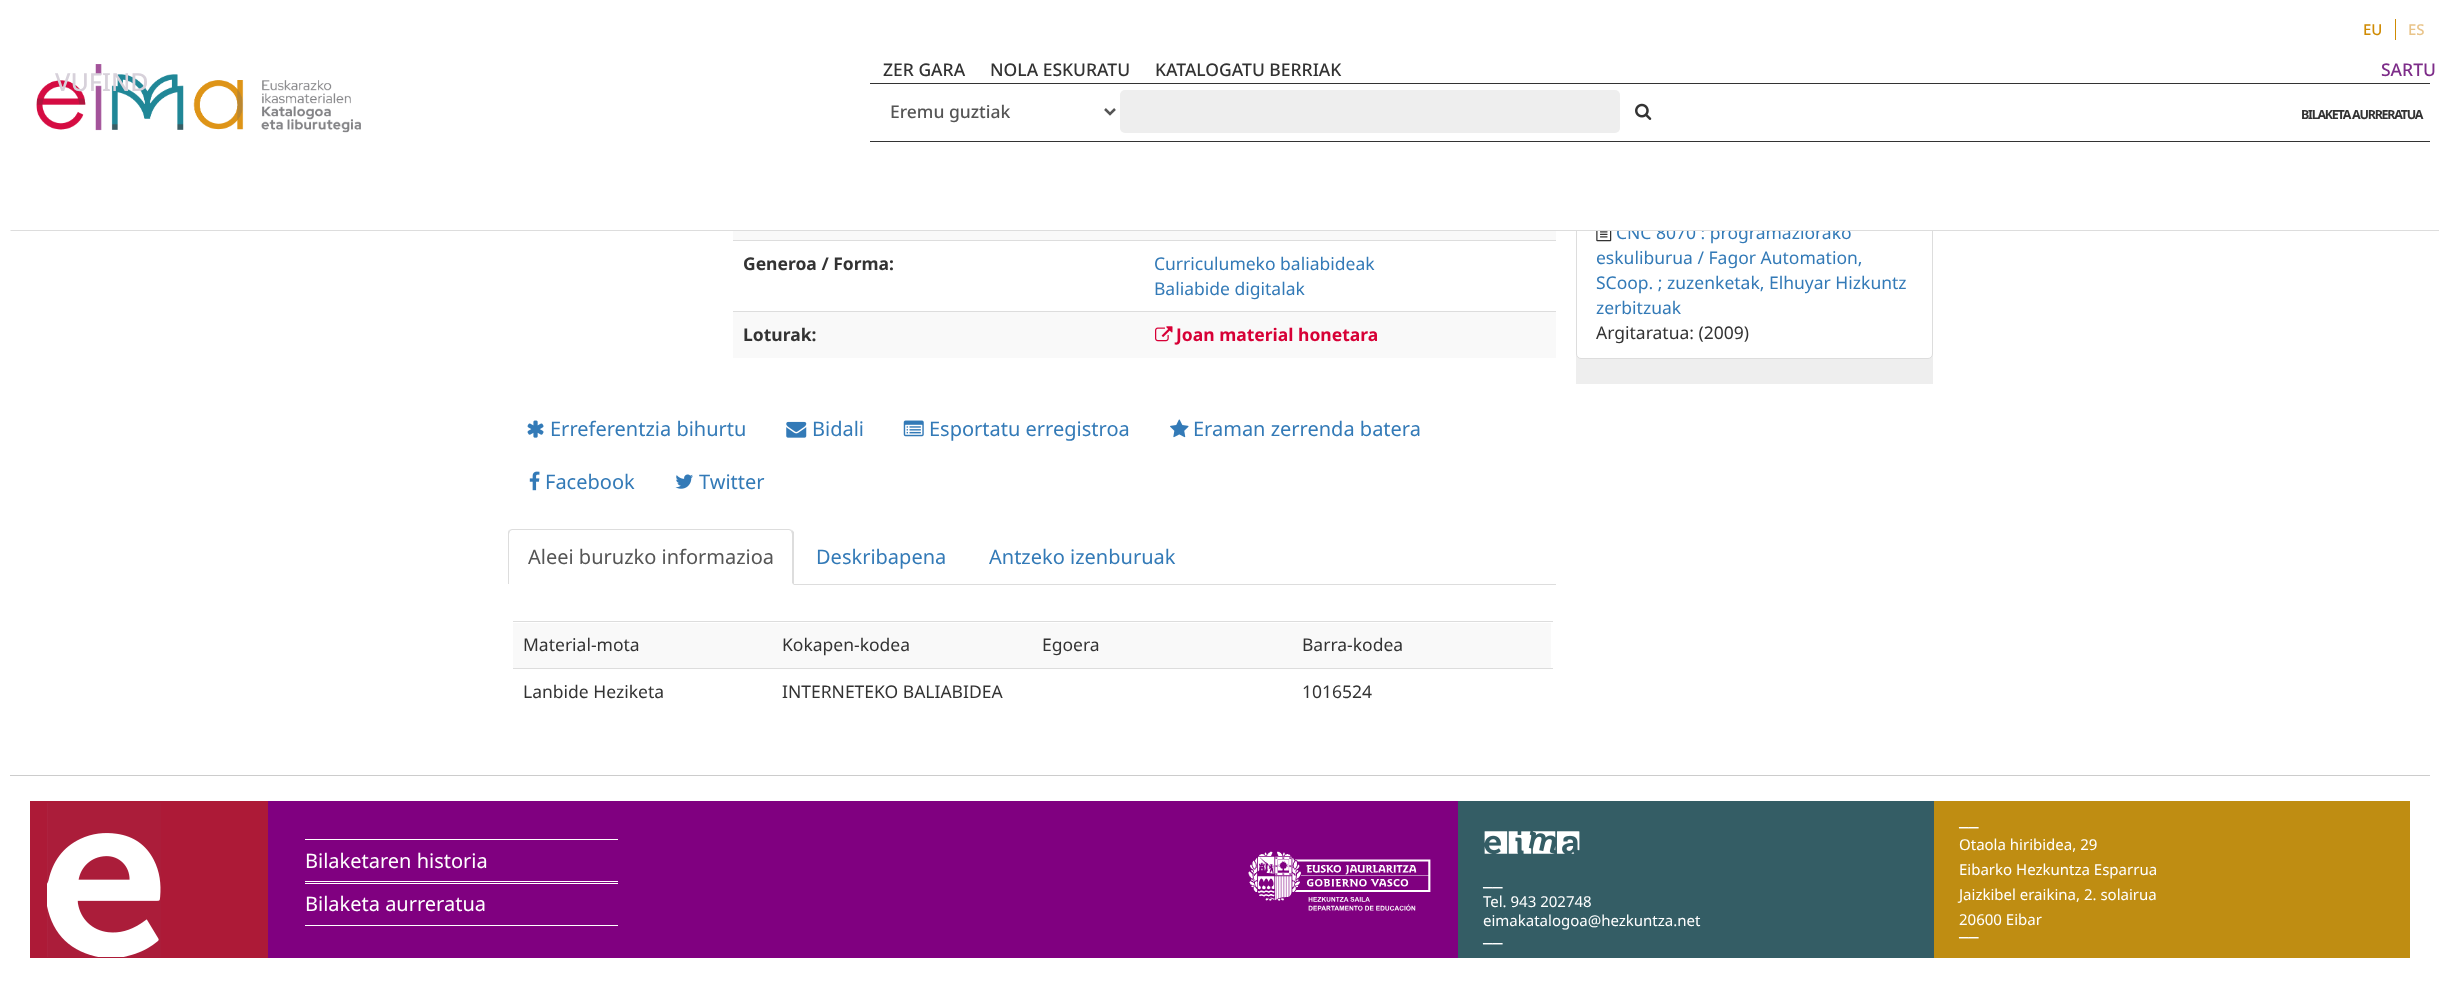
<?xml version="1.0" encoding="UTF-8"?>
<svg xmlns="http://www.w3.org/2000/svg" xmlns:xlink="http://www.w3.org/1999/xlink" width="2439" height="987">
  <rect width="100%" height="100%" fill="#ffffff" />
  <rect x="2395" y="19" width="1" height="21" fill="#d08b03" />
  <image x="36" y="64" width="325" height="69" xlink:href="image1.png" />
  <rect x="870" y="83" width="1560" height="1" fill="#333333" />
  <rect x="870" y="141" width="1560" height="1" fill="#333333" />
  <path d="M 1105 109 l 5 5 l 5 -5" fill="none" stroke="#555555" stroke-width="2.5" />
  <rect x="1120" y="90" width="500" height="43" rx="5" fill="#eeeeee" />
  <image x="1635" y="103" width="17" height="17" xlink:href="image2.png" />
  <rect x="733" y="231" width="823" height="9" fill="#f9f9f9" />
  <rect x="733" y="240" width="823" height="1" fill="#dddddd" />
  <rect x="733" y="312" width="823" height="46" fill="#f9f9f9" />
  <rect x="733" y="311" width="823" height="1" fill="#dddddd" />
  <image x="1155" y="326" width="18" height="16" xlink:href="image3.png" />
  <rect x="794" y="584" width="762" height="1" fill="#dddddd" />
  <image x="527" y="420" width="17" height="18" xlink:href="image4.png" />
  <image x="786" y="421" width="21" height="17" xlink:href="image5.png" />
  <image x="903" y="420" width="21" height="17" xlink:href="image6.png" />
  <image x="1170" y="419" width="19" height="19" xlink:href="image7.png" />
  <image x="529" y="471" width="11" height="20" xlink:href="image8.png" />
  <image x="675" y="474" width="18" height="15" xlink:href="image9.png" />
  <path d="M 512 529 c -1 0 -2 1 -3 1 l 1 1 l 2 -1 h 277 l 2 1 l 1 -1 l -3 -1 z" fill="#dddddd" />
  <path d="M 792 530 l 2 2 v 53 l -2 -2 v -49 l -1 -3 z" fill="#dddddd" />
  <path d="M 509 530 c -1 1 -1 3 -1 4 v 50 h 1 v -50 l 1 -3 z" fill="#dddddd" />
  <rect x="513" y="623" width="1038" height="45" fill="#f9f9f9" />
  <rect x="513" y="621" width="1040" height="1" fill="#dddddd" />
  <rect x="513" y="668" width="1040" height="1" fill="#dddddd" />
  <rect x="1576" y="354" width="357" height="30" fill="#eeeeee" />
  <path d="M 1576.5 206.5 h 356 v 147.5 c 0 2.5 -2 4.5 -4.5 4.5 h -347 c -2.5 0 -4.5 -2 -4.5 -4.5 z" fill="#ffffff" stroke="#dddddd" />
  <image x="1596" y="231" width="16" height="11" xlink:href="image10.png" />
  <rect x="10" y="775" width="2420" height="1" fill="#cccccc" />
  <rect x="30" y="801" width="238" height="157" fill="#ad1a37" />
  <image x="47" y="803" width="114" height="154" xlink:href="image11.png" />
  <rect x="268" y="801" width="1190" height="157" fill="#800080" />
  <rect x="305" y="839" width="313" height="1" fill="#ffffff" />
  <rect x="305" y="881" width="313" height="1" fill="#ffffff" />
  <rect x="305" y="883" width="313" height="1" fill="#ffffff" />
  <rect x="305" y="925" width="313" height="1" fill="#ffffff" />
  <image x="1248" y="851" width="183" height="60" xlink:href="image12.png" />
  <rect x="1458" y="801" width="476" height="157" fill="#345d65" />
  <image x="1484" y="831" width="96" height="23" xlink:href="image13.png" />
  <rect x="1934" y="801" width="476" height="157" fill="#bf8d12" />
  <text x="2363" y="35" style="font-family: Noto Sans; font-size: 15px; font-weight: 500; fill: #d08b03">EU</text>
  <text x="2408" y="35" style="font-family: Noto Sans; font-size: 15px; font-weight: 500; fill: #e9c48a">ES</text>
  <text x="55" y="91" style="font-family: Noto Sans; font-size: 25px; font-weight: 500; fill: #d7d1da">VUFIND</text>
  <text x="883" y="76" style="font-family: Noto Sans; font-size: 17.5px; font-weight: 500; fill: #333333">ZER GARA</text>
  <text x="990" y="76" style="font-family: Noto Sans; font-size: 17.5px; font-weight: 500; fill: #333333">NOLA ESKURATU</text>
  <text x="1155" y="76" style="font-family: Noto Sans; font-size: 17.5px; font-weight: 500; fill: #333333">KATALOGATU BERRIAK</text>
  <text x="2381" y="76" style="font-family: Noto Sans; font-size: 17.5px; font-weight: 500; fill: #7d2c89">SARTU</text>
  <text x="890" y="118" style="font-family: Noto Sans; font-size: 17.5px; font-weight: 500; fill: #555555">Eremu guztiak</text>
  <text x="2301" y="119" style="font-family: Noto Sans; font-size: 12.5px; font-weight: bold; letter-spacing: -1.25px; fill: #333333">BILAKETA AURRERATUA</text>
  <text x="743" y="270" style="font-family: Noto Sans; font-size: 17.5px; font-weight: bold; fill: #333333">Generoa / Forma:</text>
  <text x="1154" y="270" style="font-family: Noto Sans; font-size: 17.5px; fill: #337ab7">Curriculumeko baliabideak</text>
  <text x="1154" y="295" style="font-family: Noto Sans; font-size: 17.5px; fill: #337ab7">Baliabide digitalak</text>
  <text x="743" y="341" style="font-family: Noto Sans; font-size: 17.5px; font-weight: bold; fill: #333333">Loturak:</text>
  <text x="1176" y="341" style="font-family: Noto Sans; font-size: 17.5px; font-weight: bold; fill: #d70036">Joan material honetara</text>
  <text x="550" y="436" style="font-family: Noto Sans; font-size: 20px; fill: #337ab7">Erreferentzia bihurtu</text>
  <text x="812" y="436" style="font-family: Noto Sans; font-size: 20px; fill: #337ab7">Bidali</text>
  <text x="929" y="436" style="font-family: Noto Sans; font-size: 20px; fill: #337ab7">Esportatu erregistroa</text>
  <text x="1193" y="436" style="font-family: Noto Sans; font-size: 20px; fill: #337ab7">Eraman zerrenda batera</text>
  <text x="545" y="489" style="font-family: Noto Sans; font-size: 20px; fill: #337ab7">Facebook</text>
  <text x="699" y="489" style="font-family: Noto Sans; font-size: 20px; fill: #337ab7">Twitter</text>
  <text x="528" y="564" style="font-family: Noto Sans; font-size: 20px; fill: #555555">Aleei buruzko informazioa</text>
  <text x="816" y="564" style="font-family: Noto Sans; font-size: 20px; fill: #337ab7">Deskribapena</text>
  <text x="989" y="564" style="font-family: Noto Sans; font-size: 20px; fill: #337ab7">Antzeko izenburuak</text>
  <text x="523" y="651" style="font-family: Noto Sans; font-size: 17.5px; fill: #333333">Material-mota</text>
  <text x="782" y="651" style="font-family: Noto Sans; font-size: 17.5px; fill: #333333">Kokapen-kodea</text>
  <text x="1042" y="651" style="font-family: Noto Sans; font-size: 17.5px; fill: #333333">Egoera</text>
  <text x="1302" y="651" style="font-family: Noto Sans; font-size: 17.5px; fill: #333333">Barra-kodea</text>
  <text x="523" y="698" style="font-family: Noto Sans; font-size: 17.5px; fill: #333333">Lanbide Heziketa</text>
  <text x="782" y="698" style="font-family: Noto Sans; font-size: 17.5px; fill: #333333">INTERNETEKO BALIABIDEA</text>
  <text x="1302" y="698" style="font-family: Noto Sans; font-size: 17.5px; fill: #333333">1016524</text>
  <text x="1616" y="239" style="font-family: Noto Sans; font-size: 17.5px; fill: #337ab7">CNC 8070 : programaziorako</text>
  <rect x="1576" y="206" width="357" height="25" fill="#ffffff" />
  <path d="M 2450 231 h -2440 l 1 -1 h 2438 z" fill="#dddddd" />
  <text x="1596" y="264" style="font-family: Noto Sans; font-size: 17.5px; fill: #337ab7">eskuliburua / Fagor Automation,</text>
  <text x="1596" y="289" style="font-family: Noto Sans; font-size: 17.5px; fill: #337ab7">SCoop. ; zuzenketak, Elhuyar Hizkuntz</text>
  <text x="1596" y="314" style="font-family: Noto Sans; font-size: 17.5px; fill: #337ab7">zerbitzuak</text>
  <text x="1596" y="339" style="font-family: Noto Sans; font-size: 17.5px; fill: #333333">Argitaratua: (2009)</text>
  <text x="305" y="868" style="font-family: Noto Sans; font-size: 20px; fill: #ffffff">Bilaketaren historia</text>
  <text x="305" y="911" style="font-family: Noto Sans; font-size: 20px; fill: #ffffff">Bilaketa aurreratua</text>
  <text x="1483" y="885" style="font-family: Noto Sans; font-size: 22px; fill: #ffffff">__</text>
  <text x="1483" y="907" style="font-family: Noto Sans; font-size: 15px; fill: #ffffff">Tel. 943 202748</text>
  <text x="1483" y="926" style="font-family: Noto Sans; font-size: 15px; fill: #ffffff">eimakatalogoa@hezkuntza.net</text>
  <text x="1483" y="941" style="font-family: Noto Sans; font-size: 22px; fill: #ffffff">__</text>
  <text x="1959" y="825" style="font-family: Noto Sans; font-size: 22px; fill: #ffffff">__</text>
  <text x="1959" y="850" style="font-family: Noto Sans; font-size: 15px; fill: #ffffff">Otaola hiribidea, 29</text>
  <text x="1959" y="875" style="font-family: Noto Sans; font-size: 15px; fill: #ffffff">Eibarko Hezkuntza Esparrua</text>
  <text x="1959" y="900" style="font-family: Noto Sans; font-size: 15px; fill: #ffffff">Jaizkibel eraikina, 2. solairua</text>
  <text x="1959" y="925" style="font-family: Noto Sans; font-size: 15px; fill: #ffffff">20600 Eibar</text>
  <text x="1959" y="935" style="font-family: Noto Sans; font-size: 22px; fill: #ffffff">__</text>
</svg>
